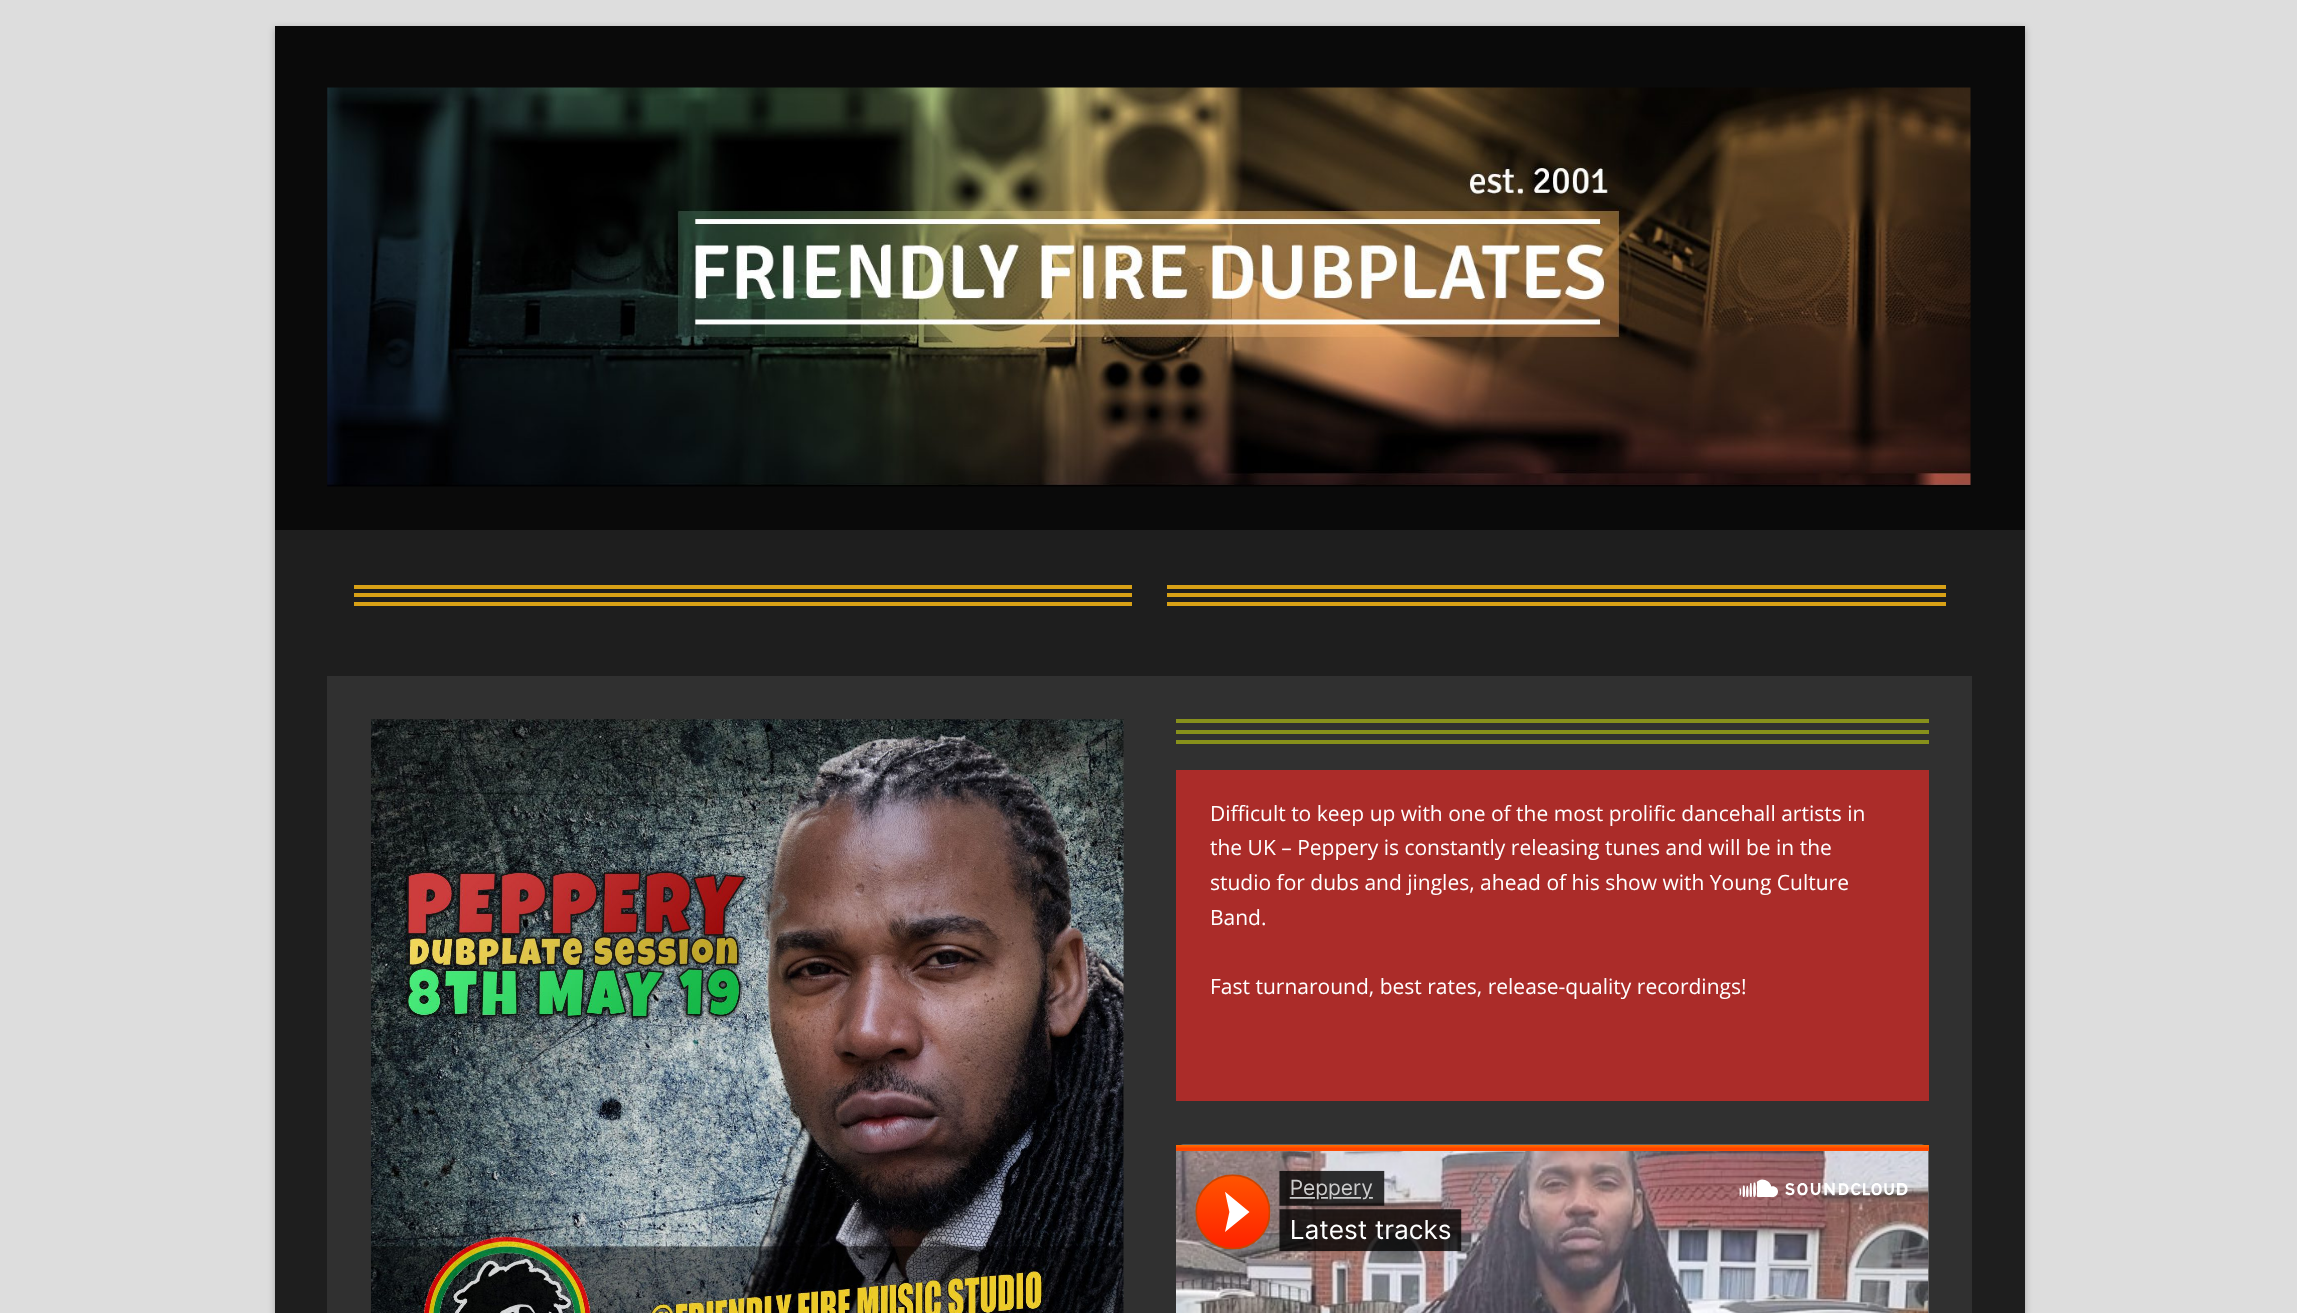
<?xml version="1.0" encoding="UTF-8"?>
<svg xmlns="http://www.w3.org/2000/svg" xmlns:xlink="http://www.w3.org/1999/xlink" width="2297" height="1313">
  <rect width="100%" height="100%" fill="#dddddd" />
  <rect x="275" y="28" width="1750" height="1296" fill="#000000" fill-opacity="0.25" filter="blur(3.5px)" />
  <rect x="275" y="530" width="1750" height="783" fill="#1e1e1e" />
  <rect x="275" y="26" width="1750" height="504" fill="#0a0a0a" />
  <image x="327" y="87" width="1644" height="400" xlink:href="image1.png" />
  <rect x="354" y="585" width="778" height="4" fill="#d8a116" />
  <rect x="354" y="593" width="778" height="4" fill="#d8a116" />
  <rect x="354" y="602" width="778" height="4" fill="#d8a116" />
  <rect x="1167" y="585" width="779" height="4" fill="#d8a116" />
  <rect x="1167" y="593" width="779" height="4" fill="#d8a116" />
  <rect x="1167" y="602" width="779" height="4" fill="#d8a116" />
  <rect x="327" y="676" width="1645" height="637" fill="#303030" />
  <image x="371" y="719" width="753" height="594" xlink:href="image2.png" />
  <rect x="1176" y="719" width="753" height="4" fill="#87901b" />
  <rect x="1176" y="730" width="753" height="4" fill="#87901b" />
  <rect x="1176" y="740" width="753" height="4" fill="#87901b" />
  <rect x="1176" y="770" width="753" height="331" fill="#ab2c29" />
  <image x="1176" y="1144" width="753" height="169" xlink:href="image3.png" />
  <text x="1210" y="821" style="font-family: Open Sans; font-size: 21px; fill: #ffffff">Difficult to keep up with one of the most prolific dancehall artists in</text>
  <text x="1210" y="855" style="font-family: Open Sans; font-size: 21px; fill: #ffffff">the UK – Peppery is constantly releasing tunes and will be in the</text>
  <text x="1210" y="890" style="font-family: Open Sans; font-size: 21px; fill: #ffffff">studio for dubs and jingles, ahead of his show with Young Culture</text>
  <text x="1210" y="925" style="font-family: Open Sans; font-size: 21px; fill: #ffffff">Band.</text>
  <text x="1210" y="994" style="font-family: Open Sans; font-size: 21px; fill: #ffffff">Fast turnaround, best rates, release-quality recordings!</text>
</svg>
